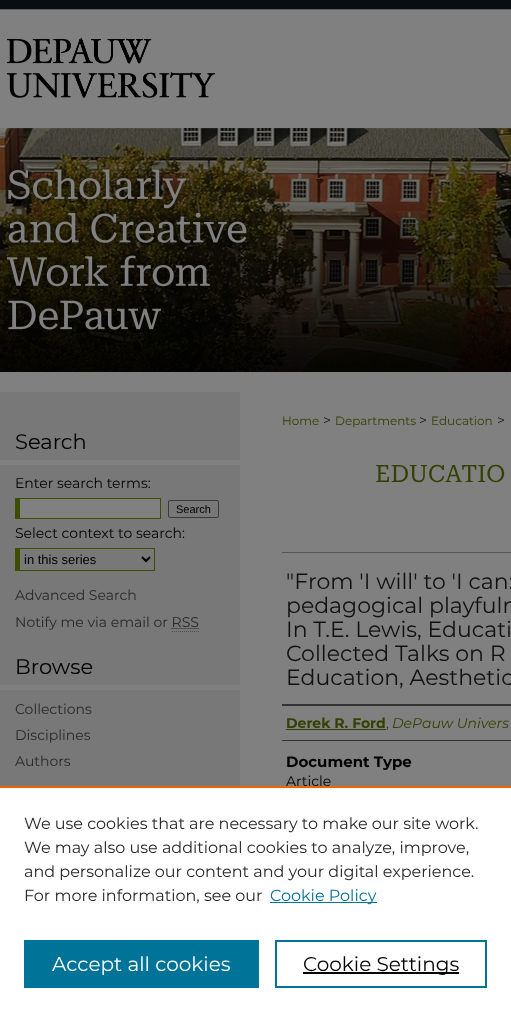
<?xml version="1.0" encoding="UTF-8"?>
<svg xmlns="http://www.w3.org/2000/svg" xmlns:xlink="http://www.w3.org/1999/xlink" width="511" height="1012">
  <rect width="100%" height="100%" fill="#808080" />
  <image x="0" y="0" width="511" height="372" xlink:href="image1.png" />
  <image x="7" y="38" width="208" height="60" xlink:href="image2.png" />
  <image x="2" y="128" width="509" height="205" xlink:href="image3.png" />
  <rect y="392" width="240" height="394" fill="#787878" />
  <rect y="460" width="240" height="5" fill="#808080" />
  <rect x="20" y="499" width="140" height="19" fill="#808080" />
  <rect x="15" y="498" width="146" height="1" fill="#3d4d01" />
  <rect x="160" y="498" width="1" height="21" fill="#3d4d01" />
  <rect x="15" y="518" width="146" height="1" fill="#3d4d01" />
  <rect x="15" y="498" width="5" height="21" fill="#3d4d01" />
  <rect x="168.5" y="500.5" width="50" height="17" rx="1.5" fill="none" stroke="#3b3b3b" />
  <rect x="15" y="548" width="140" height="1" fill="#3d4d01" />
  <rect x="154" y="548" width="1" height="23" fill="#3d4d01" />
  <rect x="15" y="570" width="140" height="1" fill="#3d4d01" />
  <rect x="15" y="548" width="5" height="23" fill="#3d4d01" />
  <path d="M 142 557 l 4 4 l 4 -4" fill="none" stroke="#000000" stroke-width="2" />
  <path d="M 171.5 628.5 h 27.5" fill="none" stroke="#292929" stroke-dasharray="1 1" />
  <path d="M 172 631.5 h 27" fill="none" stroke="#4d4d4d" stroke-dasharray="1 1" />
  <rect y="685" width="240" height="5" fill="#808080" />
  <rect x="282" y="552" width="229" height="1" fill="#555555" />
  <rect x="282" y="704" width="229" height="2" fill="#333333" />
  <rect x="282" y="740" width="229" height="1" fill="#333333" />
  <rect x="286" y="729" width="100" height="1" fill="#334001" />
  <rect y="788" width="511" height="224" fill="#ffffff" />
  <rect x="270" y="902" width="107" height="1" fill="#007398" />
  <rect x="24" y="940" width="235" height="48" fill="#007398" />
  <rect x="276" y="941" width="210" height="46" fill="none" stroke="#007398" stroke-width="2" />
  <rect x="303" y="972" width="156" height="2" fill="#000000" />
  <text x="15" y="449" style="font-family: Montserrat; font-size: 21px; fill: #000000">Search</text>
  <text x="15" y="488" style="font-family: Montserrat; font-size: 14px; fill: #000000">Enter search terms:</text>
  <text x="176" y="513" style="font-family: Liberation Sans; font-size: 11px; fill: #000000">Search</text>
  <text x="15" y="538" style="font-family: Montserrat; font-size: 14px; fill: #000000">Select context to search:</text>
  <text x="24" y="564" style="font-family: Liberation Sans; font-size: 13px; fill: #000000">in this series</text>
  <text x="15" y="600" style="font-family: Montserrat; font-size: 14px; fill: #292929">Advanced Search</text>
  <text x="15" y="627" style="font-family: Montserrat; font-size: 14px; fill: #292929">Notify me via email or RSS</text>
  <text x="15" y="674" style="font-family: Montserrat; font-size: 21px; fill: #000000">Browse</text>
  <text x="15" y="714" style="font-family: Montserrat; font-size: 14px; fill: #292929">Collections</text>
  <text x="15" y="740" style="font-family: Montserrat; font-size: 14px; fill: #292929">Disciplines</text>
  <text x="15" y="766" style="font-family: Montserrat; font-size: 14px; fill: #292929">Authors</text>
  <text x="282" y="425" style="font-family: Montserrat; font-size: 12px; fill: #334001">Home</text>
  <text x="323" y="425" style="font-family: Montserrat; font-size: 14px; fill: #000000">&gt;</text>
  <text x="335" y="425" style="font-family: Montserrat; font-size: 12px; fill: #334001">Departments</text>
  <text x="419" y="425" style="font-family: Montserrat; font-size: 14px; fill: #000000">&gt;</text>
  <text x="431" y="425" style="font-family: Montserrat; font-size: 12px; fill: #334001">Education</text>
  <text x="497" y="425" style="font-family: Montserrat; font-size: 14px; fill: #000000">&gt;</text>
  <text x="375" y="482" style="font-family: Roboto Serif; font-size: 24px; fill: #334001">EDUCATIO</text>
  <text x="286" y="589" style="font-family: Montserrat; font-size: 22px; fill: #111111">"From 'I will' to 'I can:</text>
  <text x="286" y="613" style="font-family: Montserrat; font-size: 22px; fill: #111111">pedagogical playfuln</text>
  <text x="286" y="637" style="font-family: Montserrat; font-size: 22px; fill: #111111">In T.E. Lewis, Educati</text>
  <text x="286" y="661" style="font-family: Montserrat; font-size: 22px; fill: #111111">Collected Talks on R</text>
  <text x="286" y="685" style="font-family: Montserrat; font-size: 22px; fill: #111111">Education, Aesthetic</text>
  <text x="286" y="728" style="font-family: Montserrat; font-size: 14px; font-weight: bold; fill: #334001">Derek R. Ford</text>
  <text x="386" y="728" style="font-family: Montserrat; font-size: 14px; fill: #334001">,</text>
  <text x="392" y="728" style="font-family: Montserrat; font-size: 14px; font-style: italic; fill: #334001">DePauw Univers</text>
  <text x="286" y="767" style="font-family: Montserrat; font-size: 15px; font-weight: bold; fill: #000000">Document Type</text>
  <text x="286" y="786" style="font-family: Montserrat; font-size: 14px; fill: #000000">Article</text>
  <rect y="786" width="511" height="2" fill="#eb6500" />
  <text x="24" y="829" style="font-family: Montserrat; font-size: 16px; fill: #292929">We use cookies that are necessary to make our site work.</text>
  <text x="24" y="853" style="font-family: Montserrat; font-size: 16px; fill: #292929">We may also use additional cookies to analyze, improve,</text>
  <text x="24" y="877" style="font-family: Montserrat; font-size: 16px; fill: #292929">and personalize our content and your digital experience.</text>
  <text x="24" y="901" style="font-family: Montserrat; font-size: 16px; fill: #292929">For more information, see our</text>
  <text x="270" y="901" style="font-family: Montserrat; font-size: 16px; fill: #007398">Cookie Policy</text>
  <text x="52" y="971" style="font-family: Montserrat; font-size: 20px; fill: #ffffff">Accept all cookies</text>
  <text x="303" y="971" style="font-family: Montserrat; font-size: 20px; fill: #000000">Cookie Settings</text>
</svg>
